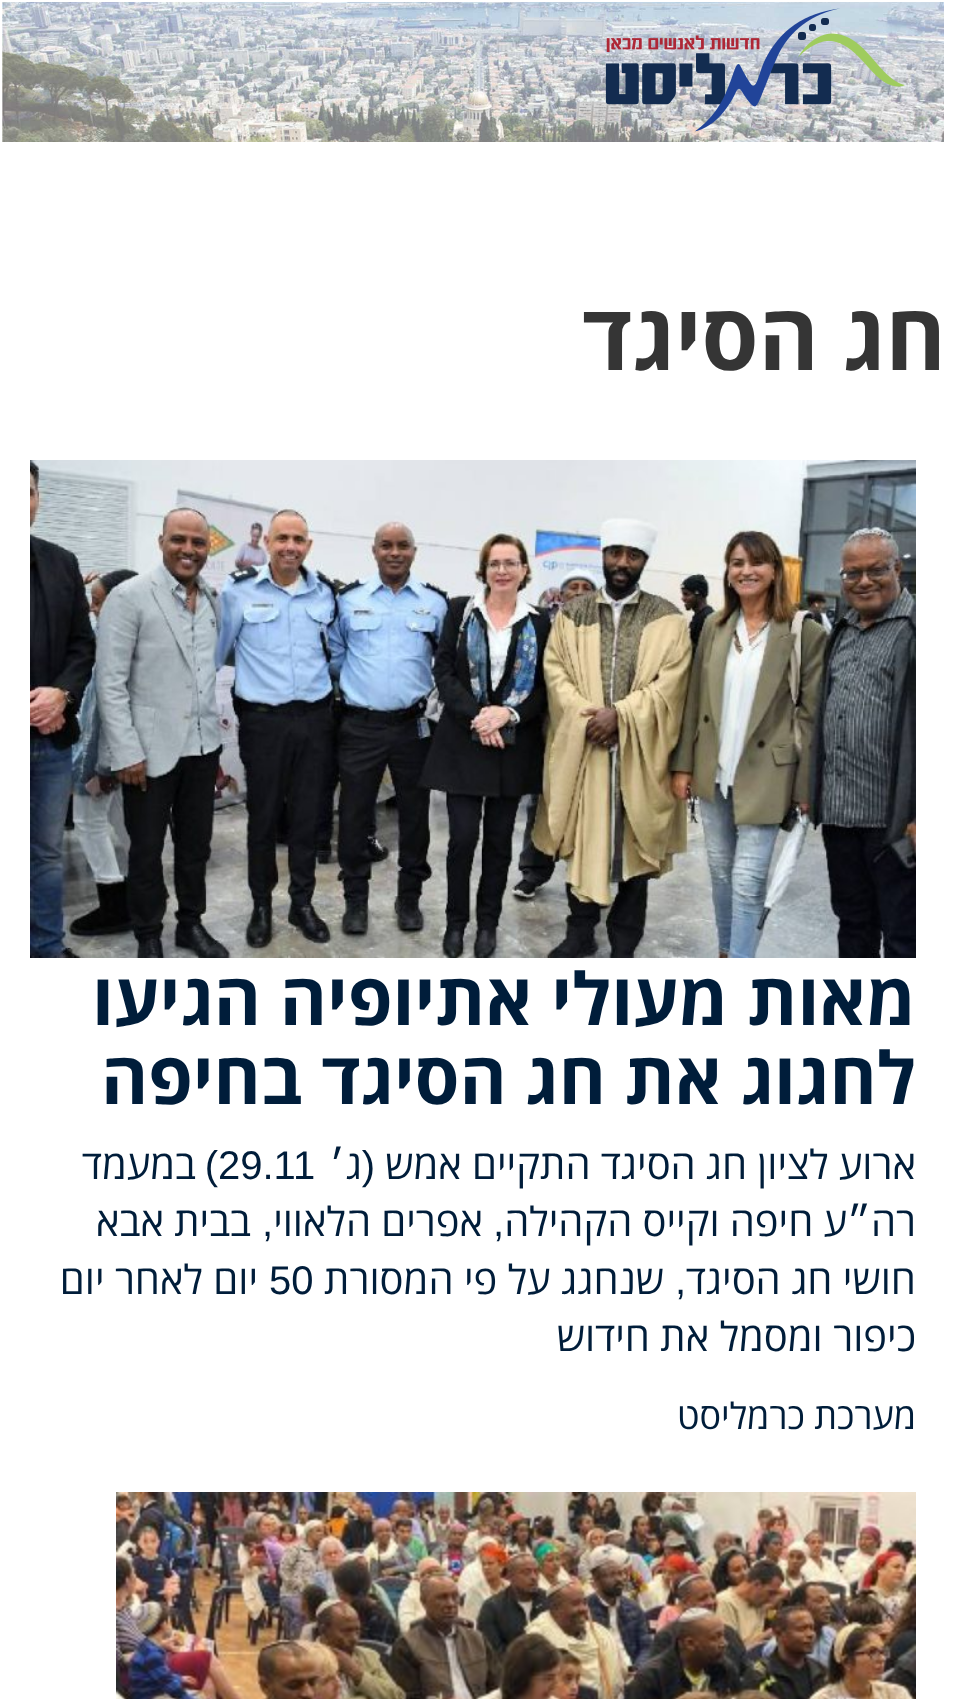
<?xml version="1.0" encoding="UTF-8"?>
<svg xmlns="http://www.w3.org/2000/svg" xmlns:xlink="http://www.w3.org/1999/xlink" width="956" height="1699">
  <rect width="100%" height="100%" fill="#ffffff" />
  <image x="2" y="2" width="942" height="140" xlink:href="image1.png" />
  <image x="605" y="8" width="300" height="124" xlink:href="image2.png" />
  <image x="30" y="460" width="886" height="498" xlink:href="image3.png" />
  <image x="116" y="1492" width="800" height="207" xlink:href="image4.png" />
  <text x="946" y="370" style="font-family: Open Sans; font-size: 92px; font-weight: bold; direction: rtl; fill: #353535">חג הסיגד</text>
  <text x="916" y="1025" style="font-family: Open Sans; font-size: 72px; font-weight: bold; direction: rtl; fill: #001d3a">מאות מעולי אתיופיה הגיעו</text>
  <text x="916" y="1104" style="font-family: Open Sans; font-size: 72px; font-weight: bold; direction: rtl; fill: #001d3a">לחגוג את חג הסיגד בחיפה</text>
  <text x="916" y="1179" word-spacing="-0.25" style="font-family: Open Sans; font-size: 40px; direction: rtl; fill: #001d3a">ארוע לציון חג הסיגד התקיים אמש</text>
  <text x="375" y="1179" style="font-family: Liberation Sans; font-size: 40px; direction: rtl; fill: #001d3a">(</text>
  <text x="362" y="1179" style="font-family: Open Sans; font-size: 40px; direction: rtl; fill: #001d3a">ג</text>
  <text x="345" y="1179" style="font-family: Liberation Sans; font-size: 40px; direction: rtl; fill: #001d3a">׳</text>
  <text x="218" y="1179" style="font-family: Liberation Sans; font-size: 40px; fill: #001d3a">29.11</text>
  <text x="218" y="1179" style="font-family: Liberation Sans; font-size: 40px; direction: rtl; fill: #001d3a">)</text>
  <text x="196" y="1179" style="font-family: Open Sans; font-size: 40px; direction: rtl; fill: #001d3a">במעמד</text>
  <text x="916" y="1236" style="font-family: Open Sans; font-size: 40px; direction: rtl; fill: #001d3a">רה</text>
  <text x="871" y="1236" style="font-family: Liberation Sans; font-size: 40px; direction: rtl; fill: #001d3a">״</text>
  <text x="847" y="1236" word-spacing="-0.25" style="font-family: Open Sans; font-size: 40px; direction: rtl; fill: #001d3a">ע חיפה וקייס הקהילה</text>
  <text x="504" y="1236" style="font-family: Liberation Sans; font-size: 40px; direction: rtl; fill: #001d3a">,</text>
  <text x="483" y="1236" word-spacing="-0.25" style="font-family: Open Sans; font-size: 40px; direction: rtl; fill: #001d3a">אפרים הלאווי</text>
  <text x="273" y="1236" style="font-family: Liberation Sans; font-size: 40px; direction: rtl; fill: #001d3a">,</text>
  <text x="251" y="1236" word-spacing="-0.25" style="font-family: Open Sans; font-size: 40px; direction: rtl; fill: #001d3a">בבית אבא</text>
  <text x="916" y="1294" style="font-family: Open Sans; font-size: 40px; direction: rtl; fill: #001d3a">חושי חג הסיגד</text>
  <text x="686" y="1294" style="font-family: Liberation Sans; font-size: 40px; direction: rtl; fill: #001d3a">,</text>
  <text x="664" y="1294" style="font-family: Open Sans; font-size: 40px; direction: rtl; fill: #001d3a">שנחגג על פי המסורת</text>
  <text x="269" y="1294" style="font-family: Liberation Sans; font-size: 40px; fill: #001d3a">50</text>
  <text x="258" y="1294" style="font-family: Open Sans; font-size: 40px; direction: rtl; fill: #001d3a">יום לאחר יום</text>
  <text x="916" y="1351" style="font-family: Open Sans; font-size: 40px; direction: rtl; fill: #001d3a">כיפור ומסמל את חידוש</text>
  <text x="916" y="1429" style="font-family: Open Sans; font-size: 36px; direction: rtl; fill: #001d3a">מערכת כרמליסט</text>
</svg>
